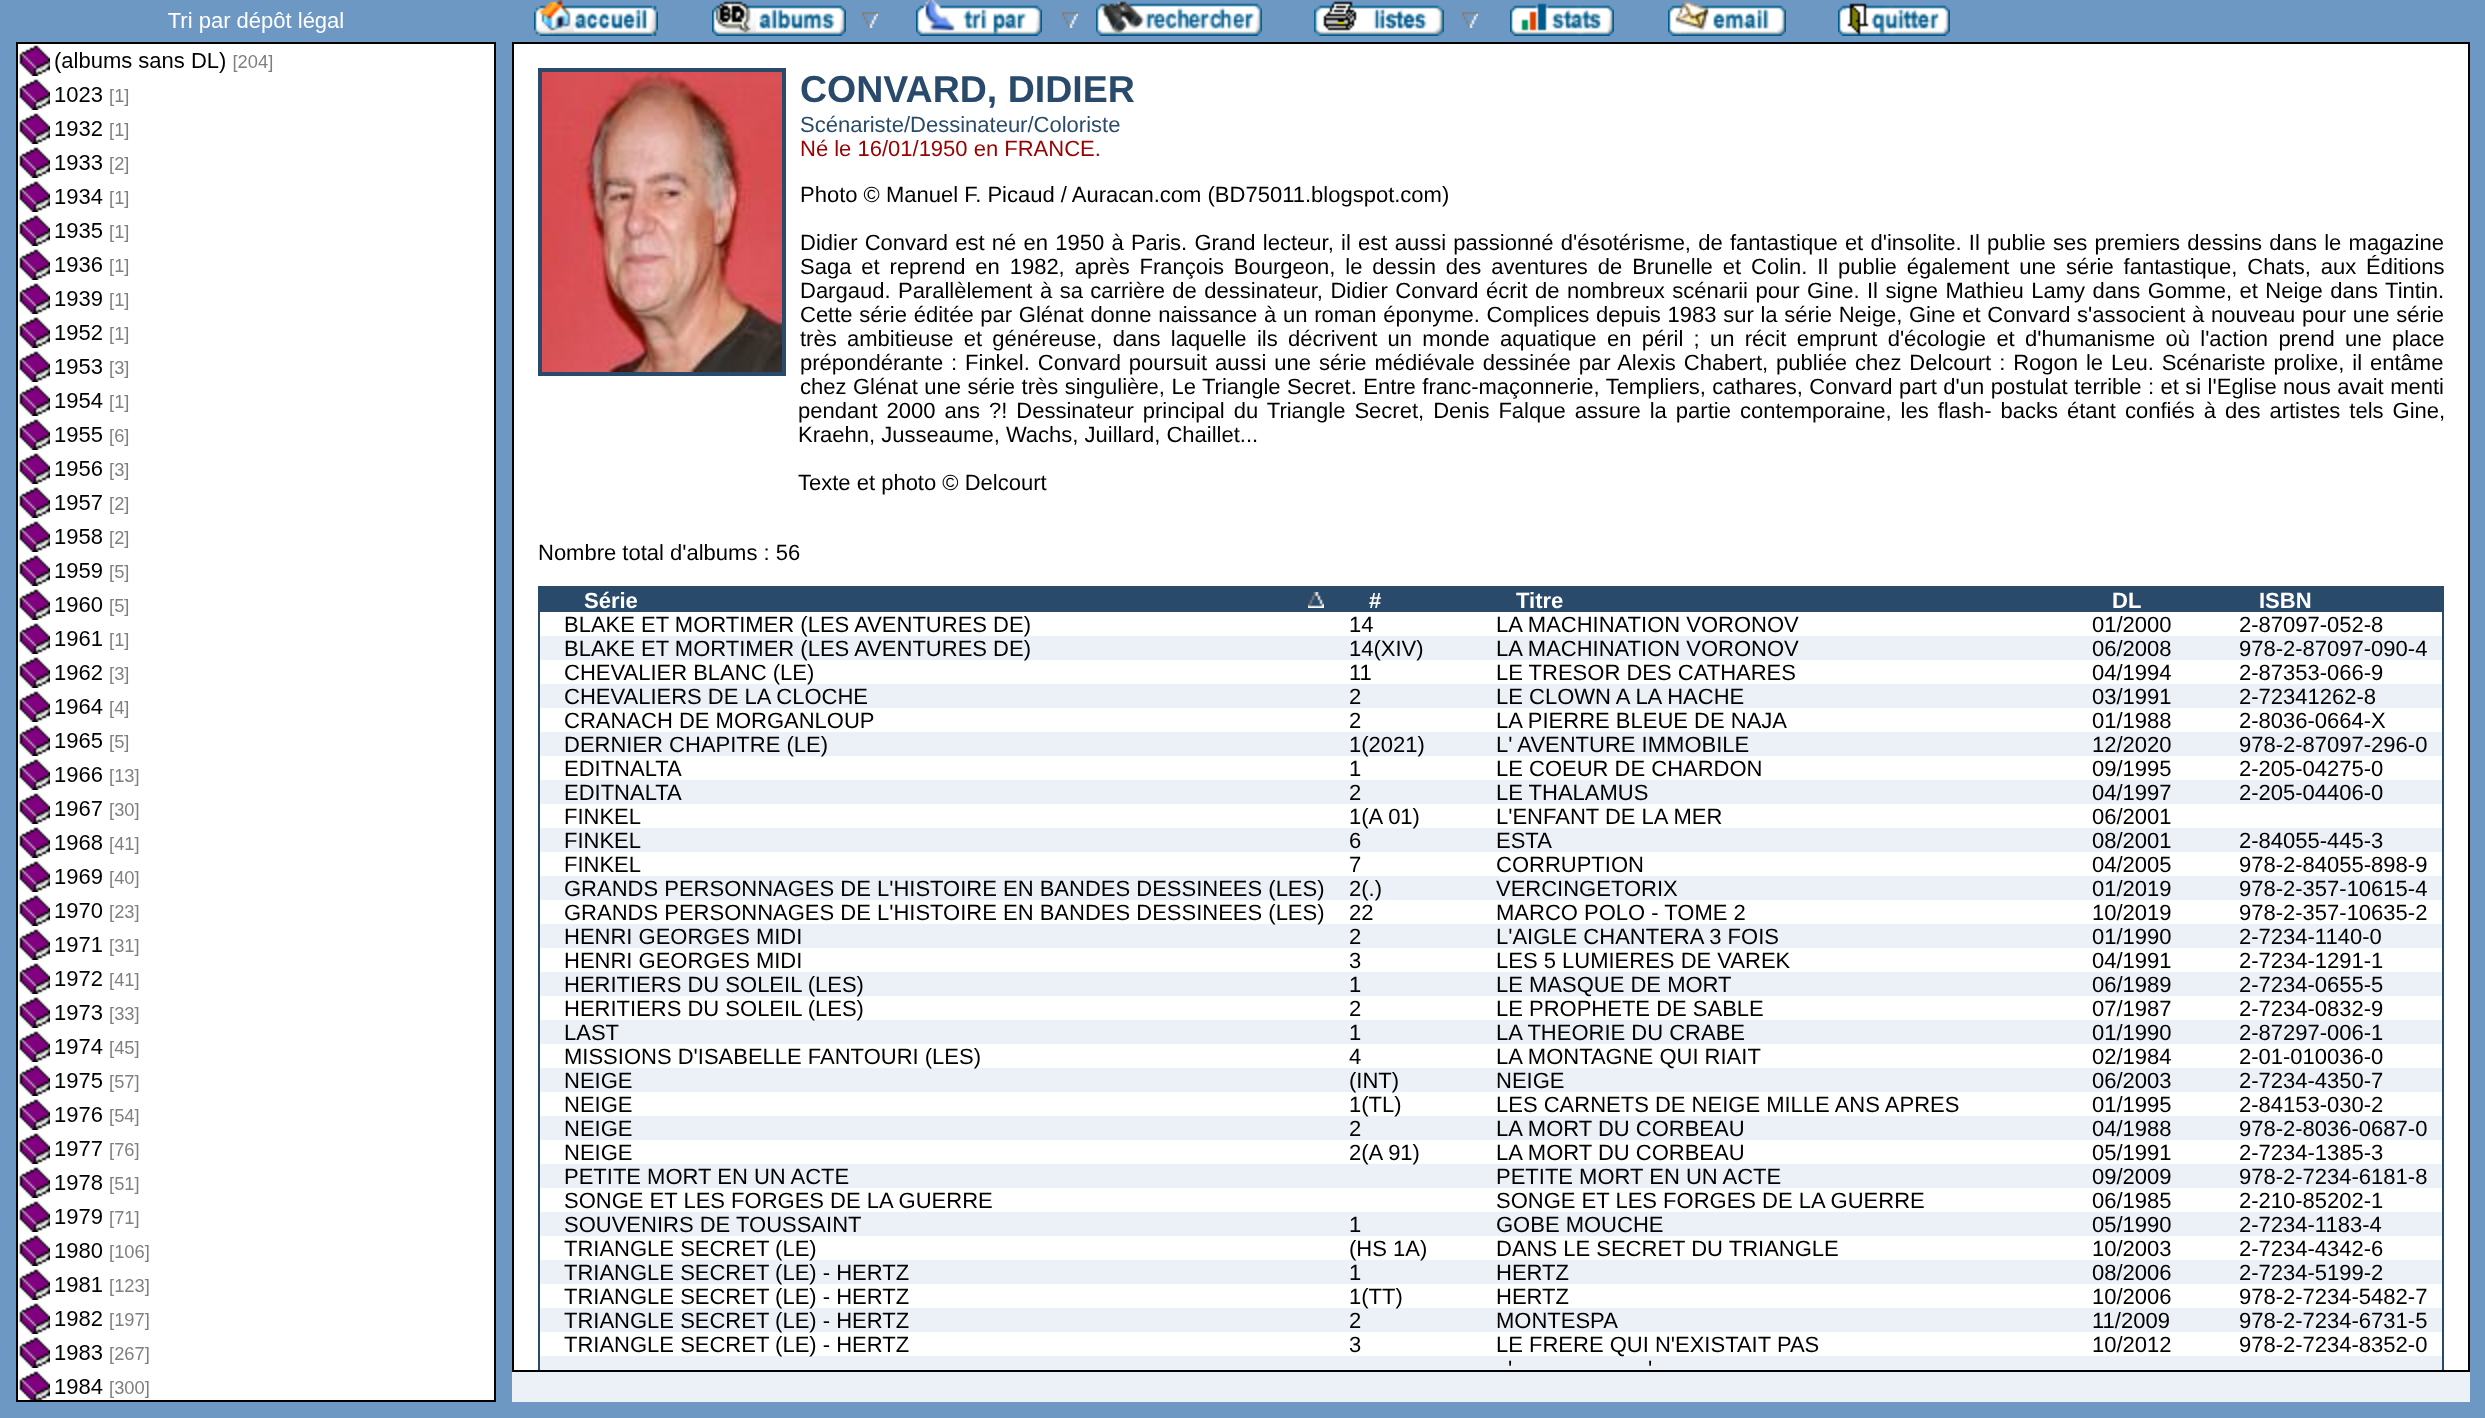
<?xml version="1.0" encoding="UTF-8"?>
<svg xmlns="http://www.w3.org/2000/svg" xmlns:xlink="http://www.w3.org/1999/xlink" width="2485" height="1418">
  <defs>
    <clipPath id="clip1"><rect x="514" y="44" width="1954" height="1326" /></clipPath>
  </defs>
  <rect width="100%" height="100%" fill="#6d98c3" />
  <image x="16" y="12" width="480" height="1390" xlink:href="image1.png" />
  <image x="534" y="0" width="124" height="36" xlink:href="image2.png" />
  <image x="862" y="12" width="16" height="16" xlink:href="image3.png" />
  <image x="712" y="1" width="134" height="35" xlink:href="image4.png" />
  <image x="1062" y="12" width="16" height="16" xlink:href="image3.png" />
  <image x="916" y="0" width="126" height="36" xlink:href="image5.png" />
  <image x="1096" y="1" width="166" height="35" xlink:href="image6.png" />
  <image x="1462" y="12" width="16" height="16" xlink:href="image3.png" />
  <image x="1314" y="1" width="130" height="35" xlink:href="image7.png" />
  <image x="1510" y="3" width="104" height="33" xlink:href="image8.png" />
  <image x="1668" y="1" width="118" height="35" xlink:href="image9.png" />
  <image x="1838" y="3" width="112" height="33" xlink:href="image10.png" />
  <rect x="513" y="43" width="1956" height="1328" fill="#ffffff" stroke="#000000" stroke-width="2" />
  <rect x="540" y="70" width="244" height="304" fill="none" stroke="#294a6b" stroke-width="4" />
  <image x="542" y="72" width="240" height="300" xlink:href="image11.png" />
  <g clip-path="url(#clip1)">
    <rect x="539" y="587" width="1904" height="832" fill="none" stroke="#294a6b" stroke-width="2" />
  </g>
  <rect x="540" y="588" width="1902" height="24" fill="#294a6b" />
  <image x="1308" y="592" width="16" height="16" xlink:href="image12.png" />
  <rect x="540" y="636" width="1902" height="24" fill="#ebf1f7" />
  <rect x="540" y="684" width="1902" height="24" fill="#ebf1f7" />
  <rect x="540" y="732" width="1902" height="24" fill="#ebf1f7" />
  <rect x="540" y="780" width="1902" height="24" fill="#ebf1f7" />
  <rect x="540" y="828" width="1902" height="24" fill="#ebf1f7" />
  <rect x="540" y="876" width="1902" height="24" fill="#ebf1f7" />
  <rect x="540" y="924" width="1902" height="24" fill="#ebf1f7" />
  <rect x="540" y="972" width="1902" height="24" fill="#ebf1f7" />
  <rect x="540" y="1020" width="1902" height="24" fill="#ebf1f7" />
  <rect x="540" y="1068" width="1902" height="24" fill="#ebf1f7" />
  <rect x="540" y="1116" width="1902" height="24" fill="#ebf1f7" />
  <rect x="540" y="1164" width="1902" height="24" fill="#ebf1f7" />
  <rect x="540" y="1212" width="1902" height="24" fill="#ebf1f7" />
  <rect x="540" y="1260" width="1902" height="24" fill="#ebf1f7" />
  <rect x="540" y="1308" width="1902" height="24" fill="#ebf1f7" />
  <rect x="540" y="1356" width="1902" height="14" fill="#ebf1f7" />
  <rect x="512" y="1372" width="1958" height="30" fill="#ebf1f7" />
  <text x="800" y="102" style="font-family: Liberation Sans; font-size: 37.5px; font-weight: bold; fill: #294a6b">CONVARD, DIDIER</text>
  <text x="800" y="132" style="font-family: Liberation Sans; font-size: 22px; fill: #294a6b">Scénariste/Dessinateur/Coloriste</text>
  <text x="800" y="156" style="font-family: Liberation Sans; font-size: 22px; fill: #990000">Né le 16/01/1950 en FRANCE.</text>
  <text x="800" y="202" style="font-family: Liberation Sans; font-size: 22px; fill: #000000">Photo © Manuel F. Picaud / Auracan.com (BD75011.blogspot.com)</text>
  <text x="800" y="250" word-spacing="1.15" style="font-family: Liberation Sans; font-size: 22px; fill: #000000">Didier Convard est né en 1950 à Paris. Grand lecteur, il est aussi passionné d'ésotérisme, de fantastique et d'insolite. Il publie ses premiers dessins dans le magazine</text>
  <text x="800" y="274" word-spacing="3.8" style="font-family: Liberation Sans; font-size: 22px; fill: #000000">Saga et reprend en 1982, après François Bourgeon, le dessin des aventures de Brunelle et Colin. Il publie également une série fantastique, Chats, aux Éditions</text>
  <text x="800" y="298" word-spacing="1.35" style="font-family: Liberation Sans; font-size: 22px; fill: #000000">Dargaud. Parallèlement à sa carrière de dessinateur, Didier Convard écrit de nombreux scénarii pour Gine. Il signe Mathieu Lamy dans Gomme, et Neige dans Tintin.</text>
  <text x="800" y="322" word-spacing="0.6" style="font-family: Liberation Sans; font-size: 22px; fill: #000000">Cette série éditée par Glénat donne naissance à un roman éponyme. Complices depuis 1983 sur la série Neige, Gine et Convard s'associent à nouveau pour une série</text>
  <text x="800" y="346" word-spacing="4.2" style="font-family: Liberation Sans; font-size: 22px; fill: #000000">très ambitieuse et généreuse, dans laquelle ils décrivent un monde aquatique en péril ; un récit emprunt d'écologie et d'humanisme où l'action prend une place</text>
  <text x="800" y="370" word-spacing="1.8" style="font-family: Liberation Sans; font-size: 22px; fill: #000000">prépondérante : Finkel. Convard poursuit aussi une série médiévale dessinée par Alexis Chabert, publiée chez Delcourt : Rogon le Leu. Scénariste prolixe, il entâme</text>
  <text x="800" y="394" word-spacing="0.35" style="font-family: Liberation Sans; font-size: 22px; fill: #000000">chez Glénat une série très singulière, Le Triangle Secret. Entre franc-maçonnerie, Templiers, cathares, Convard part d'un postulat terrible : et si l'Eglise nous avait menti</text>
  <text x="798" y="418" word-spacing="2.9" style="font-family: Liberation Sans; font-size: 22px; fill: #000000">pendant 2000 ans ?! Dessinateur principal du Triangle Secret, Denis Falque assure la partie contemporaine, les flash- backs étant confiés à des artistes tels Gine,</text>
  <text x="798" y="442" style="font-family: Liberation Sans; font-size: 22px; fill: #000000">Kraehn, Jusseaume, Wachs, Juillard, Chaillet...</text>
  <text x="798" y="490" style="font-family: Liberation Sans; font-size: 22px; fill: #000000">Texte et photo © Delcourt</text>
  <text x="538" y="560" style="font-family: Liberation Sans; font-size: 22px; fill: #000000">Nombre total d'albums : 56</text>
  <text x="584" y="608" style="font-family: Liberation Sans; font-size: 22px; font-weight: bold; fill: #ffffff">Série</text>
  <text x="1369" y="608" style="font-family: Liberation Sans; font-size: 22px; font-weight: bold; fill: #ffffff">#</text>
  <text x="1516" y="608" style="font-family: Liberation Sans; font-size: 22px; font-weight: bold; fill: #ffffff">Titre</text>
  <text x="2112" y="608" style="font-family: Liberation Sans; font-size: 22px; font-weight: bold; fill: #ffffff">DL</text>
  <text x="2259" y="608" style="font-family: Liberation Sans; font-size: 22px; font-weight: bold; fill: #ffffff">ISBN</text>
  <text x="564" y="632" style="font-family: Liberation Sans; font-size: 22px; fill: #000000">BLAKE ET MORTIMER (LES AVENTURES DE)</text>
  <text x="1349" y="632" style="font-family: Liberation Sans; font-size: 22px; fill: #000000">14</text>
  <text x="1496" y="632" style="font-family: Liberation Sans; font-size: 22px; fill: #000000">LA MACHINATION VORONOV</text>
  <text x="2092" y="632" style="font-family: Liberation Sans; font-size: 22px; fill: #000000">01/2000</text>
  <text x="2239" y="632" style="font-family: Liberation Sans; font-size: 22px; fill: #000000">2-87097-052-8</text>
  <text x="564" y="656" style="font-family: Liberation Sans; font-size: 22px; fill: #000000">BLAKE ET MORTIMER (LES AVENTURES DE)</text>
  <text x="1349" y="656" style="font-family: Liberation Sans; font-size: 22px; fill: #000000">14(XIV)</text>
  <text x="1496" y="656" style="font-family: Liberation Sans; font-size: 22px; fill: #000000">LA MACHINATION VORONOV</text>
  <text x="2092" y="656" style="font-family: Liberation Sans; font-size: 22px; fill: #000000">06/2008</text>
  <text x="2239" y="656" style="font-family: Liberation Sans; font-size: 22px; fill: #000000">978-2-87097-090-4</text>
  <text x="564" y="680" style="font-family: Liberation Sans; font-size: 22px; fill: #000000">CHEVALIER BLANC (LE)</text>
  <text x="1349" y="680" style="font-family: Liberation Sans; font-size: 22px; fill: #000000">11</text>
  <text x="1496" y="680" style="font-family: Liberation Sans; font-size: 22px; fill: #000000">LE TRESOR DES CATHARES</text>
  <text x="2092" y="680" style="font-family: Liberation Sans; font-size: 22px; fill: #000000">04/1994</text>
  <text x="2239" y="680" style="font-family: Liberation Sans; font-size: 22px; fill: #000000">2-87353-066-9</text>
  <text x="564" y="704" style="font-family: Liberation Sans; font-size: 22px; fill: #000000">CHEVALIERS DE LA CLOCHE</text>
  <text x="1349" y="704" style="font-family: Liberation Sans; font-size: 22px; fill: #000000">2</text>
  <text x="1496" y="704" style="font-family: Liberation Sans; font-size: 22px; fill: #000000">LE CLOWN A LA HACHE</text>
  <text x="2092" y="704" style="font-family: Liberation Sans; font-size: 22px; fill: #000000">03/1991</text>
  <text x="2239" y="704" style="font-family: Liberation Sans; font-size: 22px; fill: #000000">2-72341262-8</text>
  <text x="564" y="728" style="font-family: Liberation Sans; font-size: 22px; fill: #000000">CRANACH DE MORGANLOUP</text>
  <text x="1349" y="728" style="font-family: Liberation Sans; font-size: 22px; fill: #000000">2</text>
  <text x="1496" y="728" style="font-family: Liberation Sans; font-size: 22px; fill: #000000">LA PIERRE BLEUE DE NAJA</text>
  <text x="2092" y="728" style="font-family: Liberation Sans; font-size: 22px; fill: #000000">01/1988</text>
  <text x="2239" y="728" style="font-family: Liberation Sans; font-size: 22px; fill: #000000">2-8036-0664-X</text>
  <text x="564" y="752" style="font-family: Liberation Sans; font-size: 22px; fill: #000000">DERNIER CHAPITRE (LE)</text>
  <text x="1349" y="752" style="font-family: Liberation Sans; font-size: 22px; fill: #000000">1(2021)</text>
  <text x="1496" y="752" style="font-family: Liberation Sans; font-size: 22px; fill: #000000">L' AVENTURE IMMOBILE</text>
  <text x="2092" y="752" style="font-family: Liberation Sans; font-size: 22px; fill: #000000">12/2020</text>
  <text x="2239" y="752" style="font-family: Liberation Sans; font-size: 22px; fill: #000000">978-2-87097-296-0</text>
  <text x="564" y="776" style="font-family: Liberation Sans; font-size: 22px; fill: #000000">EDITNALTA</text>
  <text x="1349" y="776" style="font-family: Liberation Sans; font-size: 22px; fill: #000000">1</text>
  <text x="1496" y="776" style="font-family: Liberation Sans; font-size: 22px; fill: #000000">LE COEUR DE CHARDON</text>
  <text x="2092" y="776" style="font-family: Liberation Sans; font-size: 22px; fill: #000000">09/1995</text>
  <text x="2239" y="776" style="font-family: Liberation Sans; font-size: 22px; fill: #000000">2-205-04275-0</text>
  <text x="564" y="800" style="font-family: Liberation Sans; font-size: 22px; fill: #000000">EDITNALTA</text>
  <text x="1349" y="800" style="font-family: Liberation Sans; font-size: 22px; fill: #000000">2</text>
  <text x="1496" y="800" style="font-family: Liberation Sans; font-size: 22px; fill: #000000">LE THALAMUS</text>
  <text x="2092" y="800" style="font-family: Liberation Sans; font-size: 22px; fill: #000000">04/1997</text>
  <text x="2239" y="800" style="font-family: Liberation Sans; font-size: 22px; fill: #000000">2-205-04406-0</text>
  <text x="564" y="824" style="font-family: Liberation Sans; font-size: 22px; fill: #000000">FINKEL</text>
  <text x="1349" y="824" style="font-family: Liberation Sans; font-size: 22px; fill: #000000">1(A 01)</text>
  <text x="1496" y="824" style="font-family: Liberation Sans; font-size: 22px; fill: #000000">L'ENFANT DE LA MER</text>
  <text x="2092" y="824" style="font-family: Liberation Sans; font-size: 22px; fill: #000000">06/2001</text>
  <text x="564" y="848" style="font-family: Liberation Sans; font-size: 22px; fill: #000000">FINKEL</text>
  <text x="1349" y="848" style="font-family: Liberation Sans; font-size: 22px; fill: #000000">6</text>
  <text x="1496" y="848" style="font-family: Liberation Sans; font-size: 22px; fill: #000000">ESTA</text>
  <text x="2092" y="848" style="font-family: Liberation Sans; font-size: 22px; fill: #000000">08/2001</text>
  <text x="2239" y="848" style="font-family: Liberation Sans; font-size: 22px; fill: #000000">2-84055-445-3</text>
  <text x="564" y="872" style="font-family: Liberation Sans; font-size: 22px; fill: #000000">FINKEL</text>
  <text x="1349" y="872" style="font-family: Liberation Sans; font-size: 22px; fill: #000000">7</text>
  <text x="1496" y="872" style="font-family: Liberation Sans; font-size: 22px; fill: #000000">CORRUPTION</text>
  <text x="2092" y="872" style="font-family: Liberation Sans; font-size: 22px; fill: #000000">04/2005</text>
  <text x="2239" y="872" style="font-family: Liberation Sans; font-size: 22px; fill: #000000">978-2-84055-898-9</text>
  <text x="564" y="896" style="font-family: Liberation Sans; font-size: 22px; fill: #000000">GRANDS PERSONNAGES DE L'HISTOIRE EN BANDES DESSINEES (LES)</text>
  <text x="1349" y="896" style="font-family: Liberation Sans; font-size: 22px; fill: #000000">2(.)</text>
  <text x="1496" y="896" style="font-family: Liberation Sans; font-size: 22px; fill: #000000">VERCINGETORIX</text>
  <text x="2092" y="896" style="font-family: Liberation Sans; font-size: 22px; fill: #000000">01/2019</text>
  <text x="2239" y="896" style="font-family: Liberation Sans; font-size: 22px; fill: #000000">978-2-357-10615-4</text>
  <text x="564" y="920" style="font-family: Liberation Sans; font-size: 22px; fill: #000000">GRANDS PERSONNAGES DE L'HISTOIRE EN BANDES DESSINEES (LES)</text>
  <text x="1349" y="920" style="font-family: Liberation Sans; font-size: 22px; fill: #000000">22</text>
  <text x="1496" y="920" style="font-family: Liberation Sans; font-size: 22px; fill: #000000">MARCO POLO - TOME 2</text>
  <text x="2092" y="920" style="font-family: Liberation Sans; font-size: 22px; fill: #000000">10/2019</text>
  <text x="2239" y="920" style="font-family: Liberation Sans; font-size: 22px; fill: #000000">978-2-357-10635-2</text>
  <text x="564" y="944" style="font-family: Liberation Sans; font-size: 22px; fill: #000000">HENRI GEORGES MIDI</text>
  <text x="1349" y="944" style="font-family: Liberation Sans; font-size: 22px; fill: #000000">2</text>
  <text x="1496" y="944" style="font-family: Liberation Sans; font-size: 22px; fill: #000000">L'AIGLE CHANTERA 3 FOIS</text>
  <text x="2092" y="944" style="font-family: Liberation Sans; font-size: 22px; fill: #000000">01/1990</text>
  <text x="2239" y="944" style="font-family: Liberation Sans; font-size: 22px; fill: #000000">2-7234-1140-0</text>
  <text x="564" y="968" style="font-family: Liberation Sans; font-size: 22px; fill: #000000">HENRI GEORGES MIDI</text>
  <text x="1349" y="968" style="font-family: Liberation Sans; font-size: 22px; fill: #000000">3</text>
  <text x="1496" y="968" style="font-family: Liberation Sans; font-size: 22px; fill: #000000">LES 5 LUMIERES DE VAREK</text>
  <text x="2092" y="968" style="font-family: Liberation Sans; font-size: 22px; fill: #000000">04/1991</text>
  <text x="2239" y="968" style="font-family: Liberation Sans; font-size: 22px; fill: #000000">2-7234-1291-1</text>
  <text x="564" y="992" style="font-family: Liberation Sans; font-size: 22px; fill: #000000">HERITIERS DU SOLEIL (LES)</text>
  <text x="1349" y="992" style="font-family: Liberation Sans; font-size: 22px; fill: #000000">1</text>
  <text x="1496" y="992" style="font-family: Liberation Sans; font-size: 22px; fill: #000000">LE MASQUE DE MORT</text>
  <text x="2092" y="992" style="font-family: Liberation Sans; font-size: 22px; fill: #000000">06/1989</text>
  <text x="2239" y="992" style="font-family: Liberation Sans; font-size: 22px; fill: #000000">2-7234-0655-5</text>
  <text x="564" y="1016" style="font-family: Liberation Sans; font-size: 22px; fill: #000000">HERITIERS DU SOLEIL (LES)</text>
  <text x="1349" y="1016" style="font-family: Liberation Sans; font-size: 22px; fill: #000000">2</text>
  <text x="1496" y="1016" style="font-family: Liberation Sans; font-size: 22px; fill: #000000">LE PROPHETE DE SABLE</text>
  <text x="2092" y="1016" style="font-family: Liberation Sans; font-size: 22px; fill: #000000">07/1987</text>
  <text x="2239" y="1016" style="font-family: Liberation Sans; font-size: 22px; fill: #000000">2-7234-0832-9</text>
  <text x="564" y="1040" style="font-family: Liberation Sans; font-size: 22px; fill: #000000">LAST</text>
  <text x="1349" y="1040" style="font-family: Liberation Sans; font-size: 22px; fill: #000000">1</text>
  <text x="1496" y="1040" style="font-family: Liberation Sans; font-size: 22px; fill: #000000">LA THEORIE DU CRABE</text>
  <text x="2092" y="1040" style="font-family: Liberation Sans; font-size: 22px; fill: #000000">01/1990</text>
  <text x="2239" y="1040" style="font-family: Liberation Sans; font-size: 22px; fill: #000000">2-87297-006-1</text>
  <text x="564" y="1064" style="font-family: Liberation Sans; font-size: 22px; fill: #000000">MISSIONS D'ISABELLE FANTOURI (LES)</text>
  <text x="1349" y="1064" style="font-family: Liberation Sans; font-size: 22px; fill: #000000">4</text>
  <text x="1496" y="1064" style="font-family: Liberation Sans; font-size: 22px; fill: #000000">LA MONTAGNE QUI RIAIT</text>
  <text x="2092" y="1064" style="font-family: Liberation Sans; font-size: 22px; fill: #000000">02/1984</text>
  <text x="2239" y="1064" style="font-family: Liberation Sans; font-size: 22px; fill: #000000">2-01-010036-0</text>
  <text x="564" y="1088" style="font-family: Liberation Sans; font-size: 22px; fill: #000000">NEIGE</text>
  <text x="1349" y="1088" style="font-family: Liberation Sans; font-size: 22px; fill: #000000">(INT)</text>
  <text x="1496" y="1088" style="font-family: Liberation Sans; font-size: 22px; fill: #000000">NEIGE</text>
  <text x="2092" y="1088" style="font-family: Liberation Sans; font-size: 22px; fill: #000000">06/2003</text>
  <text x="2239" y="1088" style="font-family: Liberation Sans; font-size: 22px; fill: #000000">2-7234-4350-7</text>
  <text x="564" y="1112" style="font-family: Liberation Sans; font-size: 22px; fill: #000000">NEIGE</text>
  <text x="1349" y="1112" style="font-family: Liberation Sans; font-size: 22px; fill: #000000">1(TL)</text>
  <text x="1496" y="1112" style="font-family: Liberation Sans; font-size: 22px; fill: #000000">LES CARNETS DE NEIGE MILLE ANS APRES</text>
  <text x="2092" y="1112" style="font-family: Liberation Sans; font-size: 22px; fill: #000000">01/1995</text>
  <text x="2239" y="1112" style="font-family: Liberation Sans; font-size: 22px; fill: #000000">2-84153-030-2</text>
  <text x="564" y="1136" style="font-family: Liberation Sans; font-size: 22px; fill: #000000">NEIGE</text>
  <text x="1349" y="1136" style="font-family: Liberation Sans; font-size: 22px; fill: #000000">2</text>
  <text x="1496" y="1136" style="font-family: Liberation Sans; font-size: 22px; fill: #000000">LA MORT DU CORBEAU</text>
  <text x="2092" y="1136" style="font-family: Liberation Sans; font-size: 22px; fill: #000000">04/1988</text>
  <text x="2239" y="1136" style="font-family: Liberation Sans; font-size: 22px; fill: #000000">978-2-8036-0687-0</text>
  <text x="564" y="1160" style="font-family: Liberation Sans; font-size: 22px; fill: #000000">NEIGE</text>
  <text x="1349" y="1160" style="font-family: Liberation Sans; font-size: 22px; fill: #000000">2(A 91)</text>
  <text x="1496" y="1160" style="font-family: Liberation Sans; font-size: 22px; fill: #000000">LA MORT DU CORBEAU</text>
  <text x="2092" y="1160" style="font-family: Liberation Sans; font-size: 22px; fill: #000000">05/1991</text>
  <text x="2239" y="1160" style="font-family: Liberation Sans; font-size: 22px; fill: #000000">2-7234-1385-3</text>
  <text x="564" y="1184" style="font-family: Liberation Sans; font-size: 22px; fill: #000000">PETITE MORT EN UN ACTE</text>
  <text x="1496" y="1184" style="font-family: Liberation Sans; font-size: 22px; fill: #000000">PETITE MORT EN UN ACTE</text>
  <text x="2092" y="1184" style="font-family: Liberation Sans; font-size: 22px; fill: #000000">09/2009</text>
  <text x="2239" y="1184" style="font-family: Liberation Sans; font-size: 22px; fill: #000000">978-2-7234-6181-8</text>
  <text x="564" y="1208" style="font-family: Liberation Sans; font-size: 22px; fill: #000000">SONGE ET LES FORGES DE LA GUERRE</text>
  <text x="1496" y="1208" style="font-family: Liberation Sans; font-size: 22px; fill: #000000">SONGE ET LES FORGES DE LA GUERRE</text>
  <text x="2092" y="1208" style="font-family: Liberation Sans; font-size: 22px; fill: #000000">06/1985</text>
  <text x="2239" y="1208" style="font-family: Liberation Sans; font-size: 22px; fill: #000000">2-210-85202-1</text>
  <text x="564" y="1232" style="font-family: Liberation Sans; font-size: 22px; fill: #000000">SOUVENIRS DE TOUSSAINT</text>
  <text x="1349" y="1232" style="font-family: Liberation Sans; font-size: 22px; fill: #000000">1</text>
  <text x="1496" y="1232" style="font-family: Liberation Sans; font-size: 22px; fill: #000000">GOBE MOUCHE</text>
  <text x="2092" y="1232" style="font-family: Liberation Sans; font-size: 22px; fill: #000000">05/1990</text>
  <text x="2239" y="1232" style="font-family: Liberation Sans; font-size: 22px; fill: #000000">2-7234-1183-4</text>
  <text x="564" y="1256" style="font-family: Liberation Sans; font-size: 22px; fill: #000000">TRIANGLE SECRET (LE)</text>
  <text x="1349" y="1256" style="font-family: Liberation Sans; font-size: 22px; fill: #000000">(HS 1A)</text>
  <text x="1496" y="1256" style="font-family: Liberation Sans; font-size: 22px; fill: #000000">DANS LE SECRET DU TRIANGLE</text>
  <text x="2092" y="1256" style="font-family: Liberation Sans; font-size: 22px; fill: #000000">10/2003</text>
  <text x="2239" y="1256" style="font-family: Liberation Sans; font-size: 22px; fill: #000000">2-7234-4342-6</text>
  <text x="564" y="1280" style="font-family: Liberation Sans; font-size: 22px; fill: #000000">TRIANGLE SECRET (LE) - HERTZ</text>
  <text x="1349" y="1280" style="font-family: Liberation Sans; font-size: 22px; fill: #000000">1</text>
  <text x="1496" y="1280" style="font-family: Liberation Sans; font-size: 22px; fill: #000000">HERTZ</text>
  <text x="2092" y="1280" style="font-family: Liberation Sans; font-size: 22px; fill: #000000">08/2006</text>
  <text x="2239" y="1280" style="font-family: Liberation Sans; font-size: 22px; fill: #000000">2-7234-5199-2</text>
  <text x="564" y="1304" style="font-family: Liberation Sans; font-size: 22px; fill: #000000">TRIANGLE SECRET (LE) - HERTZ</text>
  <text x="1349" y="1304" style="font-family: Liberation Sans; font-size: 22px; fill: #000000">1(TT)</text>
  <text x="1496" y="1304" style="font-family: Liberation Sans; font-size: 22px; fill: #000000">HERTZ</text>
  <text x="2092" y="1304" style="font-family: Liberation Sans; font-size: 22px; fill: #000000">10/2006</text>
  <text x="2239" y="1304" style="font-family: Liberation Sans; font-size: 22px; fill: #000000">978-2-7234-5482-7</text>
  <text x="564" y="1328" style="font-family: Liberation Sans; font-size: 22px; fill: #000000">TRIANGLE SECRET (LE) - HERTZ</text>
  <text x="1349" y="1328" style="font-family: Liberation Sans; font-size: 22px; fill: #000000">2</text>
  <text x="1496" y="1328" style="font-family: Liberation Sans; font-size: 22px; fill: #000000">MONTESPA</text>
  <text x="2092" y="1328" style="font-family: Liberation Sans; font-size: 22px; fill: #000000">11/2009</text>
  <text x="2239" y="1328" style="font-family: Liberation Sans; font-size: 22px; fill: #000000">978-2-7234-6731-5</text>
  <text x="564" y="1352" style="font-family: Liberation Sans; font-size: 22px; fill: #000000">TRIANGLE SECRET (LE) - HERTZ</text>
  <text x="1349" y="1352" style="font-family: Liberation Sans; font-size: 22px; fill: #000000">3</text>
  <text x="1496" y="1352" style="font-family: Liberation Sans; font-size: 22px; fill: #000000">LE FRERE QUI N'EXISTAIT PAS</text>
  <text x="2092" y="1352" style="font-family: Liberation Sans; font-size: 22px; fill: #000000">10/2012</text>
  <text x="2239" y="1352" style="font-family: Liberation Sans; font-size: 22px; fill: #000000">978-2-7234-8352-0</text>
  <text x="1508" y="1376" style="font-family: Liberation Sans; font-size: 22px; fill: #000000">'</text>
  <text x="1648" y="1376" style="font-family: Liberation Sans; font-size: 22px; fill: #000000">'</text>
</svg>
